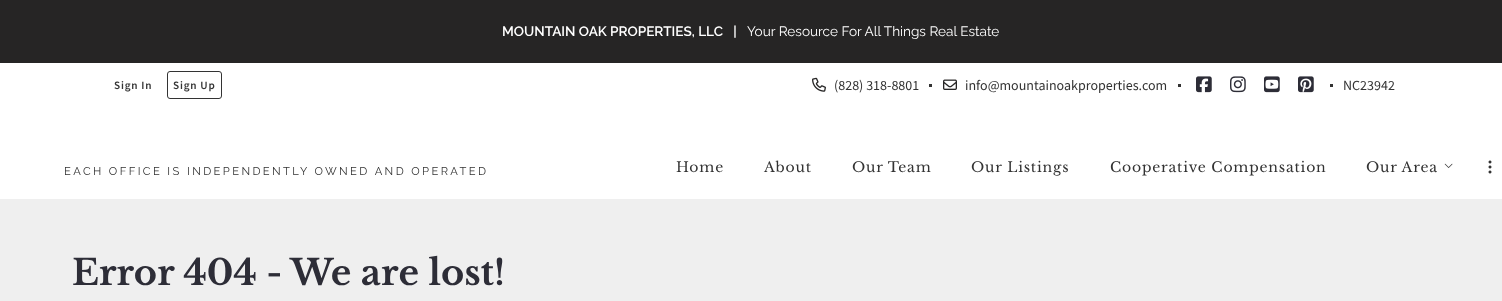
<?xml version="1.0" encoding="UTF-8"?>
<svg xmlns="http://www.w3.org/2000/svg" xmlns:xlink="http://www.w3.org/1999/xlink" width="1502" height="301">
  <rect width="100%" height="100%" fill="#ffffff" />
  <rect width="1502" height="63" fill="#262525" />
  <rect x="167.5" y="71.5" width="54" height="27" rx="2.5" fill="none" stroke="#333333" />
  <image x="812" y="77" width="14" height="15" xlink:href="image1.png" />
  <rect x="929" y="84" width="3" height="3" fill="#333333" />
  <image x="943" y="79" width="14" height="11" xlink:href="image2.png" />
  <rect x="1178" y="84" width="3" height="3" fill="#333333" />
  <image x="1196" y="76" width="16" height="17" xlink:href="image3.png" />
  <image x="1230" y="76" width="16" height="17" xlink:href="image4.png" />
  <image x="1264" y="76" width="16" height="17" xlink:href="image5.png" />
  <image x="1298" y="76" width="16" height="17" xlink:href="image6.png" />
  <rect x="1330" y="84" width="3" height="3" fill="#333333" />
  <image x="1444" y="163" width="9" height="5" xlink:href="image7.png" />
  <image x="1488" y="160" width="4" height="14" xlink:href="image8.png" />
  <rect y="199" width="1502" height="102" fill="#efefef" />
  <text x="502" y="36" style="font-family: Raleway; font-size: 13.6px; font-weight: 600; fill: #ffffff" xml:space="preserve">MOUNTAIN OAK PROPERTIES, LLC   |</text>
  <text x="747" y="36" style="font-family: Raleway; font-size: 13.6px; fill: #ffffff">Your Resource For All Things Real Estate</text>
  <text x="114" y="89" style="font-family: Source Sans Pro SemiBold; font-size: 11.2px; font-weight: 600; letter-spacing: 0.8px; fill: #333333">Sign In</text>
  <text x="173" y="89" style="font-family: Source Sans Pro SemiBold; font-size: 11.2px; font-weight: 600; letter-spacing: 0.8px; fill: #333333">Sign Up</text>
  <text x="834" y="90" style="font-family: Source Sans Pro; font-size: 14px; fill: #333333">(828) 318-8801</text>
  <text x="965" y="90" style="font-family: Source Sans Pro; font-size: 14px; fill: #333333">info@mountainoakproperties.com</text>
  <text x="1343" y="90" style="font-family: Source Sans Pro; font-size: 14px; fill: #333333">NC23942</text>
  <text x="64" y="175" style="font-family: Raleway; font-size: 11.2px; letter-spacing: 2.4px; fill: #333333">EACH OFFICE IS INDEPENDENTLY OWNED AND OPERATED</text>
  <text x="676" y="172" style="font-family: Libre Baskerville; font-size: 14px; letter-spacing: 0.8px; fill: #333333">Home</text>
  <text x="764" y="172" style="font-family: Libre Baskerville; font-size: 14px; letter-spacing: 0.8px; fill: #333333">About</text>
  <text x="852" y="172" style="font-family: Libre Baskerville; font-size: 14px; letter-spacing: 0.8px; fill: #333333">Our Team</text>
  <text x="971" y="172" style="font-family: Libre Baskerville; font-size: 14px; letter-spacing: 0.8px; fill: #333333">Our Listings</text>
  <text x="1110" y="172" style="font-family: Libre Baskerville; font-size: 14px; letter-spacing: 0.8px; fill: #333333">Cooperative Compensation</text>
  <text x="1366" y="172" style="font-family: Libre Baskerville; font-size: 14px; letter-spacing: 0.8px; fill: #333333">Our Area</text>
  <text x="72" y="285" style="font-family: Libre Baskerville; font-size: 35.25px; font-weight: bold; fill: #2d2d37">Error 404 - We are lost!</text>
</svg>
